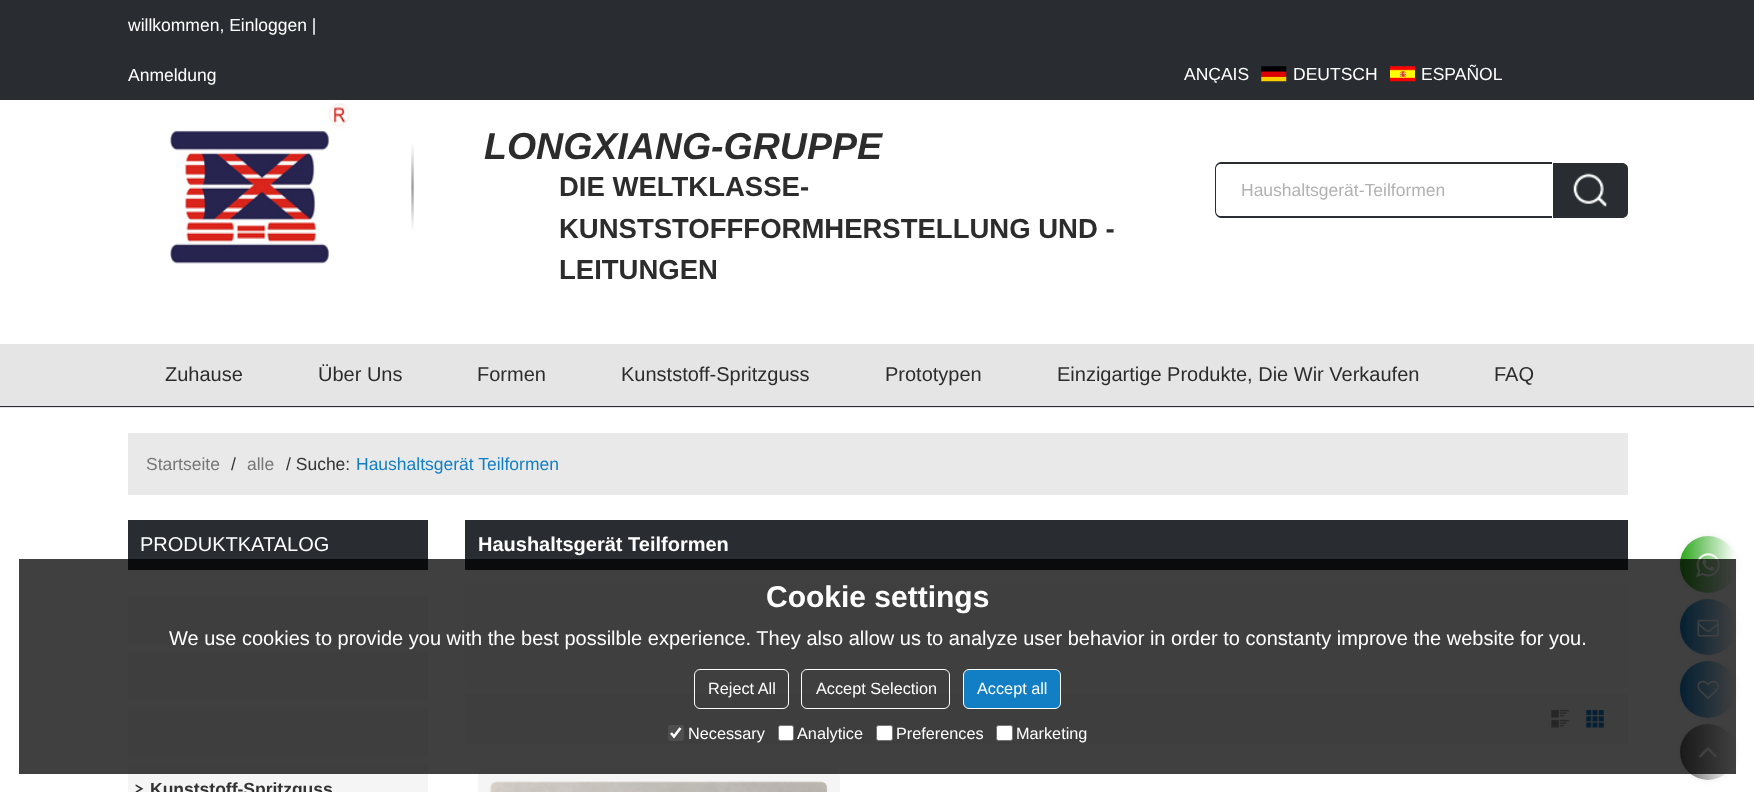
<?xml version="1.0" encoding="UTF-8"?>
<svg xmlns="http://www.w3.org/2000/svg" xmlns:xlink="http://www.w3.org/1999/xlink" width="1754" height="792">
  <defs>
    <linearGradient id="g1" gradientUnits="userSpaceOnUse" x1="1680" y1="564" x2="1736" y2="564"><stop offset="0" stop-color="#29a61a" /><stop offset="1" stop-color="#ffffff" /></linearGradient>
    <linearGradient id="g2" gradientUnits="userSpaceOnUse" x1="1680" y1="627" x2="1736" y2="627"><stop offset="0" stop-color="#127fc5" /><stop offset="1" stop-color="#ffffff" /></linearGradient>
    <linearGradient id="g3" gradientUnits="userSpaceOnUse" x1="1680" y1="689" x2="1736" y2="689"><stop offset="0" stop-color="#127fc5" /><stop offset="1" stop-color="#ffffff" /></linearGradient>
    <linearGradient id="g4" gradientUnits="userSpaceOnUse" x1="1680" y1="752" x2="1736" y2="752"><stop offset="0" stop-color="#666666" /><stop offset="1" stop-color="#ffffff" /></linearGradient>
    <clipPath id="clip1"><rect x="1184" y="48" width="444" height="35" /></clipPath>
  </defs>
  <rect width="100%" height="100%" fill="#ffffff" />
  <rect width="1754" height="100" fill="#292d31" />
  <image x="1261" y="66" width="26" height="16" xlink:href="image1.png" />
  <image x="1390" y="66" width="25" height="16" xlink:href="image2.png" />
  <image x="170" y="102" width="180" height="162" xlink:href="image3.png" />
  <image x="411" y="144" width="3" height="86" xlink:href="image4.png" />
  <path d="M 1221 162 h 331 v 56 h -331 c -3 0 -6 -3 -6 -7 v -42 c 0 -4 3 -7 6 -7 z m 0 2 h 331 v 52 h -331 c -3 0 -5 -2 -5 -5 v -42 c 0 -3 2 -5 5 -5 z" fill="#292d31" fill-rule="evenodd" />
  <path d="M 1553 163 h 69 c 3.5 0 6 2.5 6 6 v 43 c 0 3.5 -2.5 6 -6 6 h -69 z" fill="#292d31" />
  <image x="1573" y="173" width="34" height="34" xlink:href="image5.png" />
  <rect y="344" width="1754" height="64" fill="#e5e5e5" />
  <rect y="406" width="1754" height="1" fill="#292d31" />
  <rect x="128" y="433" width="1500" height="62" fill="#e9e9e9" />
  <rect x="128" y="520" width="300" height="50" fill="#292d31" />
  <rect x="128" y="595" width="300" height="50" fill="#f5f5f5" />
  <rect x="128" y="651" width="300" height="50" fill="#f5f5f5" />
  <rect x="128" y="708" width="300" height="50" fill="#f5f5f5" />
  <rect x="128" y="764" width="300" height="28" fill="#f5f5f5" />
  <rect x="465" y="520" width="1163" height="50" fill="#292d31" />
  <rect x="465" y="583" width="1163" height="105" rx="5" fill="#fafafa" />
  <rect x="465" y="694" width="1163" height="50" fill="#f5f5f5" />
  <image x="1551" y="709" width="18" height="19" xlink:href="image6.png" />
  <image x="1586" y="709" width="18" height="19" xlink:href="image7.png" />
  <rect x="478" y="769" width="362" height="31" rx="8" fill="#f5f5f5" />
  <image x="490" y="781" width="338" height="11" xlink:href="image8.png" />
  <rect x="1680" y="536" width="56" height="57" rx="28" fill="#eeeeee" filter="blur(3px)" />
  <rect x="1680" y="536" width="56" height="57" rx="28" fill="url(#g1)" />
  <image x="1696" y="553" width="24" height="24" xlink:href="image9.png" />
  <rect x="1680" y="599" width="56" height="56" rx="28" fill="#eeeeee" filter="blur(3px)" />
  <circle cx="1708" cy="627" r="28" fill="url(#g2)" />
  <image x="1697" y="619" width="22" height="18" xlink:href="image10.png" />
  <rect x="1680" y="661" width="56" height="57" rx="28" fill="#eeeeee" filter="blur(3px)" />
  <rect x="1680" y="661" width="56" height="57" rx="28" fill="url(#g3)" />
  <image x="1697" y="680" width="22" height="19" xlink:href="image11.png" />
  <rect x="1680" y="724" width="56" height="56" rx="28" fill="#eeeeee" filter="blur(3px)" />
  <circle cx="1708" cy="752" r="28" fill="url(#g4)" />
  <image x="1699" y="747" width="18" height="11" xlink:href="image12.png" />
  <rect x="19" y="559" width="1717" height="215" fill="#000000" fill-opacity="0.75" />
  <rect x="694.5" y="669.5" width="94" height="39" rx="5.5" fill="none" stroke="#ffffff" />
  <rect x="801.5" y="669.5" width="148" height="39" rx="5.5" fill="none" stroke="#ffffff" />
  <rect x="963.5" y="669.5" width="97" height="39" rx="5.5" fill="#127fc5" stroke="#ffffff" />
  <rect x="668" y="725" width="16" height="16" rx="2.5" fill="#4e4e4e" />
  <path d="M 671 733 l 3 3.5 l 6.5 -8.5" fill="none" stroke="#ffffff" stroke-width="2.6" />
  <rect x="778.5" y="725.5" width="15" height="15" rx="2" fill="#ffffff" stroke="#767676" />
  <rect x="876.5" y="725.5" width="16" height="15" rx="2" fill="#ffffff" stroke="#767676" />
  <rect x="996.5" y="725.5" width="16" height="15" rx="2" fill="#ffffff" stroke="#767676" />
  <text x="128" y="31" style="font-family: Liberation Sans; font-size: 17.5px; fill: #ffffff">willkommen, Einloggen |</text>
  <text x="128" y="81" style="font-family: Liberation Sans; font-size: 17.5px; fill: #ffffff">Anmeldung</text>
  <g clip-path="url(#clip1)">
    <text x="1184" y="80" style="font-family: Liberation Sans; font-size: 17.5px; fill: #ffffff">ANÇAIS</text>
  </g>
  <text x="1293" y="80" style="font-family: Liberation Sans; font-size: 17.5px; fill: #ffffff">DEUTSCH</text>
  <text x="1421" y="80" style="font-family: Liberation Sans; font-size: 17.5px; fill: #ffffff">ESPAÑOL</text>
  <text x="484" y="159" style="font-family: Liberation Sans; font-size: 37.5px; font-weight: bold; font-style: italic; fill: #2c2c2c">LONGXIANG-GRUPPE</text>
  <text x="559" y="196" style="font-family: Liberation Sans; font-size: 27.5px; font-weight: bold; fill: #2c2c2c">DIE WELTKLASSE-</text>
  <text x="559" y="238" style="font-family: Liberation Sans; font-size: 27.5px; font-weight: bold; fill: #2c2c2c">KUNSTSTOFFFORMHERSTELLUNG UND -</text>
  <text x="559" y="279" style="font-family: Liberation Sans; font-size: 27.5px; font-weight: bold; fill: #2c2c2c">LEITUNGEN</text>
  <text x="1241" y="196" style="font-family: Liberation Sans; font-size: 17.5px; fill: #b2b2b2">Haushaltsgerät-Teilformen</text>
  <text x="165" y="381" style="font-family: Liberation Sans; font-size: 20px; fill: #2c2c2c">Zuhause</text>
  <text x="318" y="381" style="font-family: Liberation Sans; font-size: 20px; fill: #2c2c2c">Über Uns</text>
  <text x="477" y="381" style="font-family: Liberation Sans; font-size: 20px; fill: #2c2c2c">Formen</text>
  <text x="621" y="381" style="font-family: Liberation Sans; font-size: 20px; fill: #2c2c2c">Kunststoff-Spritzguss</text>
  <text x="885" y="381" style="font-family: Liberation Sans; font-size: 20px; fill: #2c2c2c">Prototypen</text>
  <text x="1057" y="381" style="font-family: Liberation Sans; font-size: 20px; fill: #2c2c2c">Einzigartige Produkte, Die Wir Verkaufen</text>
  <text x="1494" y="381" style="font-family: Liberation Sans; font-size: 20px; fill: #2c2c2c">FAQ</text>
  <text x="146" y="470" style="font-family: Liberation Sans; font-size: 17.5px; fill: #777777">Startseite</text>
  <text x="231" y="470" style="font-family: Liberation Sans; font-size: 17.5px; fill: #333333">/</text>
  <text x="247" y="470" style="font-family: Liberation Sans; font-size: 17.5px; fill: #777777">alle</text>
  <text x="286" y="470" style="font-family: Liberation Sans; font-size: 17.5px; fill: #333333">/ Suche:</text>
  <text x="356" y="470" style="font-family: Liberation Sans; font-size: 17.5px; fill: #127fc5">Haushaltsgerät Teilformen</text>
  <text x="140" y="551" style="font-family: Liberation Sans; font-size: 20px; fill: #ffffff">PRODUKTKATALOG</text>
  <text x="134" y="793" style="font-family: Josefin Sans; font-size: 17.5px; fill: #333333">&gt;</text>
  <text x="150" y="795" style="font-family: Liberation Sans; font-size: 17.5px; font-weight: bold; fill: #333333">Kunststoff-Spritzguss</text>
  <text x="478" y="551" style="font-family: Liberation Sans; font-size: 20px; font-weight: bold; fill: #ffffff">Haushaltsgerät Teilformen</text>
  <text x="766" y="607" style="font-family: Liberation Sans; font-size: 30px; font-weight: bold; fill: #ffffff">Cookie settings</text>
  <text x="169" y="645" style="font-family: Liberation Sans; font-size: 20px; fill: #ffffff">We use cookies to provide you with the best possilble experience. They also allow us to analyze user behavior in order to constanty improve the website for you.</text>
  <text x="708" y="694" style="font-family: Liberation Sans; font-size: 16.25px; fill: #ffffff">Reject All</text>
  <text x="816" y="694" style="font-family: Liberation Sans; font-size: 16.25px; fill: #ffffff">Accept Selection</text>
  <text x="977" y="694" style="font-family: Liberation Sans; font-size: 16.25px; fill: #ffffff">Accept all</text>
  <text x="688" y="739" style="font-family: Liberation Sans; font-size: 16.25px; fill: #ffffff">Necessary</text>
  <text x="797" y="739" style="font-family: Liberation Sans; font-size: 16.25px; fill: #ffffff">Analytice</text>
  <text x="896" y="739" style="font-family: Liberation Sans; font-size: 16.25px; fill: #ffffff">Preferences</text>
  <text x="1016" y="739" style="font-family: Liberation Sans; font-size: 16.25px; fill: #ffffff">Marketing</text>
</svg>
